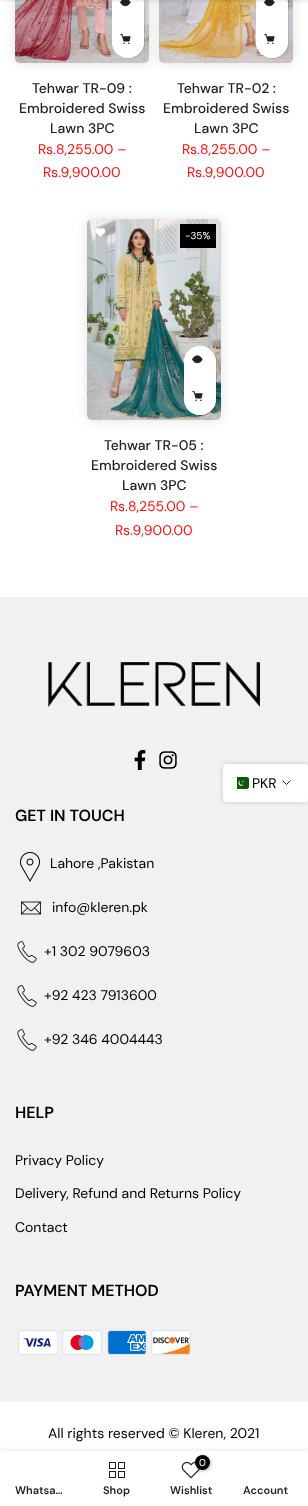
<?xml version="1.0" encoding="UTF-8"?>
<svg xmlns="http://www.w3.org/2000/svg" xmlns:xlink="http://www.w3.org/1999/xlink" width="308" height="1506">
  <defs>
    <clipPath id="clip1"><rect x="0" y="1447" width="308" height="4" /></clipPath>
  </defs>
  <rect width="100%" height="100%" fill="#ffffff" />
  <rect x="15" y="-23" width="134" height="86" rx="5" fill="#000000" fill-opacity="0.12" filter="blur(6px)" />
  <image x="15" y="0" width="134" height="63" xlink:href="image3.png" />
  <rect x="113" y="-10" width="32" height="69" rx="16" fill="#000000" fill-opacity="0.1" filter="blur(0.5px)" />
  <rect x="159" y="-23" width="134" height="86" rx="5" fill="#000000" fill-opacity="0.12" filter="blur(6px)" />
  <rect x="112" y="-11" width="32" height="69" rx="16" fill="#ffffff" />
  <circle cx="128" cy="5" r="16" fill="#ffffff" />
  <image x="120" y="0" width="11" height="7" xlink:href="image1.png" />
  <image x="159" y="0" width="134" height="63" xlink:href="image4.png" />
  <rect x="257" y="-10" width="32" height="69" rx="16" fill="#000000" fill-opacity="0.1" filter="blur(0.5px)" />
  <rect x="256" y="-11" width="32" height="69" rx="16" fill="#ffffff" />
  <circle cx="272" cy="5" r="16" fill="#ffffff" />
  <image x="264" y="0" width="11" height="7" xlink:href="image1.png" />
  <rect y="-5" width="308" height="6" fill="#000000" fill-opacity="0.1" filter="blur(1.5px)" />
  <circle cx="128" cy="42" r="16" fill="#ffffff" />
  <image x="120" y="34" width="11" height="10" xlink:href="image2.png" />
  <circle cx="272" cy="42" r="16" fill="#ffffff" />
  <image x="264" y="34" width="11" height="10" xlink:href="image2.png" />
  <rect x="87" y="219" width="134" height="201" rx="5" fill="#000000" fill-opacity="0.12" filter="blur(6px)" />
  <image x="87" y="219" width="134" height="201" xlink:href="image5.png" />
  <image x="95" y="228" width="11" height="9" xlink:href="image6.png" />
  <rect x="180" y="224" width="36" height="24" fill="#000000" />
  <rect x="185" y="347" width="32" height="69" rx="16" fill="#000000" fill-opacity="0.1" filter="blur(0.5px)" />
  <rect x="184" y="346" width="32" height="69" rx="16" fill="#ffffff" />
  <circle cx="200" cy="362" r="16" fill="#ffffff" />
  <image x="192" y="355" width="11" height="9" xlink:href="image7.png" />
  <circle cx="200" cy="399" r="16" fill="#ffffff" />
  <image x="192" y="391" width="11" height="10" xlink:href="image2.png" />
  <rect y="597" width="308" height="805" fill="#f1f1f1" />
  <image x="48" y="661" width="212" height="46" xlink:href="image8.png" />
  <image x="134" y="750" width="12" height="20" xlink:href="image9.png" />
  <image x="159" y="751" width="18" height="18" xlink:href="image10.png" />
  <image x="20" y="852" width="20" height="30" xlink:href="image11.png" />
  <image x="21" y="901" width="20" height="14" xlink:href="image12.png" />
  <image x="17" y="941" width="20" height="22" xlink:href="image13.png" />
  <image x="17" y="985" width="20" height="22" xlink:href="image13.png" />
  <image x="17" y="1029" width="20" height="22" xlink:href="image13.png" />
  <image x="18" y="1330" width="39" height="25" xlink:href="image14.png" />
  <image x="62" y="1330" width="40" height="25" xlink:href="image15.png" />
  <image x="107" y="1330" width="39" height="25" xlink:href="image16.png" />
  <image x="151" y="1330" width="40" height="25" xlink:href="image17.png" />
  <rect x="223" y="764" width="85" height="38" rx="4" fill="#000000" fill-opacity="0.17" filter="blur(2.5px)" />
  <rect x="223" y="764" width="85" height="38" rx="4" fill="#ffffff" />
  <image x="233" y="777" width="16" height="12" xlink:href="image18.png" />
  <path d="M 290 781 l -3.5 3.5 l -3.5 -3.5" fill="none" stroke="#000000" stroke-width="0.9" stroke-linecap="square" />
  <g clip-path="url(#clip1)">
    <rect y="1451" width="308" height="55" fill="#000000" fill-opacity="0.12" filter="blur(4.5px)" />
  </g>
  <image x="109" y="1462" width="16" height="16" xlink:href="image19.png" />
  <image x="181" y="1461" width="19" height="18" xlink:href="image20.png" />
  <rect x="196" y="1456" width="15" height="15" rx="7.5" fill="#000000" fill-opacity="0.3" filter="blur(1.5px)" />
  <circle cx="202.5" cy="1462.5" r="7.5" fill="#000000" />
  <text x="32" y="93" style="font-family: DM Sans; font-size: 14px; font-weight: 500; fill: #222222">Tehwar TR-09 :</text>
  <text x="19" y="113" style="font-family: DM Sans; font-size: 14px; font-weight: 500; fill: #222222">Embroidered Swiss</text>
  <text x="50" y="133" style="font-family: DM Sans; font-size: 14px; font-weight: 500; fill: #222222">Lawn 3PC</text>
  <text x="38" y="154" style="font-family: DM Sans; font-size: 14px; fill: #ff0e0e">Rs.8,255.00 –</text>
  <text x="43" y="177" style="font-family: DM Sans; font-size: 14px; fill: #ff0e0e">Rs.9,900.00</text>
  <text x="177" y="93" style="font-family: DM Sans; font-size: 14px; font-weight: 500; fill: #222222">Tehwar TR-02 :</text>
  <text x="163" y="113" style="font-family: DM Sans; font-size: 14px; font-weight: 500; fill: #222222">Embroidered Swiss</text>
  <text x="194" y="133" style="font-family: DM Sans; font-size: 14px; font-weight: 500; fill: #222222">Lawn 3PC</text>
  <text x="182" y="154" style="font-family: DM Sans; font-size: 14px; fill: #ff0e0e">Rs.8,255.00 –</text>
  <text x="187" y="177" style="font-family: DM Sans; font-size: 14px; fill: #ff0e0e">Rs.9,900.00</text>
  <text x="185" y="239" style="font-family: DM Sans; font-size: 10px; fill: #ffffff">-35%</text>
  <text x="104" y="450" style="font-family: DM Sans; font-size: 14px; font-weight: 500; fill: #222222">Tehwar TR-05 :</text>
  <text x="91" y="470" style="font-family: DM Sans; font-size: 14px; font-weight: 500; fill: #222222">Embroidered Swiss</text>
  <text x="122" y="490" style="font-family: DM Sans; font-size: 14px; font-weight: 500; fill: #222222">Lawn 3PC</text>
  <text x="110" y="511" style="font-family: DM Sans; font-size: 14px; fill: #ff0e0e">Rs.8,255.00 –</text>
  <text x="115" y="535" style="font-family: DM Sans; font-size: 14px; fill: #ff0e0e">Rs.9,900.00</text>
  <text x="15" y="821" style="font-family: DM Sans; font-size: 16px; font-weight: 600; fill: #000000">GET IN TOUCH</text>
  <text x="50" y="868" style="font-family: DM Sans; font-size: 14px; fill: #000000">Lahore ,Pakistan</text>
  <text x="52" y="912" style="font-family: DM Sans; font-size: 14px; fill: #000000">info@kleren.pk</text>
  <text x="44" y="956" style="font-family: DM Sans; font-size: 14px; fill: #000000">+1 302 9079603</text>
  <text x="44" y="1000" style="font-family: DM Sans; font-size: 14px; fill: #000000">+92 423 7913600</text>
  <text x="44" y="1044" style="font-family: DM Sans; font-size: 14px; fill: #000000">+92 346 4004443</text>
  <text x="15" y="1118" style="font-family: DM Sans; font-size: 16px; font-weight: 600; fill: #000000">HELP</text>
  <text x="15" y="1165" style="font-family: DM Sans; font-size: 14px; fill: #000000">Privacy Policy</text>
  <text x="15" y="1198" style="font-family: DM Sans; font-size: 14px; fill: #000000">Delivery, Refund and Returns Policy</text>
  <text x="15" y="1232" style="font-family: DM Sans; font-size: 14px; fill: #000000">Contact</text>
  <text x="15" y="1296" style="font-family: DM Sans; font-size: 16px; font-weight: 600; fill: #000000">PAYMENT METHOD</text>
  <text x="48" y="1438" style="font-family: DM Sans; font-size: 14px; fill: #000000">All rights reserved © Kleren, 2021</text>
  <text x="252" y="788" style="font-family: DM Sans; font-size: 14px; fill: #000000">PKR</text>
  <text x="15" y="1494" style="font-family: DM Sans; font-size: 11px; font-weight: 600; fill: #222222">Whatsa…</text>
  <text x="103" y="1494" style="font-family: DM Sans; font-size: 11px; font-weight: 600; fill: #222222">Shop</text>
  <text x="199" y="1466" style="font-family: DM Sans; font-size: 10px; fill: #ffffff">0</text>
  <text x="170" y="1494" style="font-family: DM Sans; font-size: 11px; font-weight: 600; fill: #222222">Wishlist</text>
  <text x="243" y="1494" style="font-family: DM Sans; font-size: 11px; font-weight: 600; fill: #222222">Account</text>
</svg>
